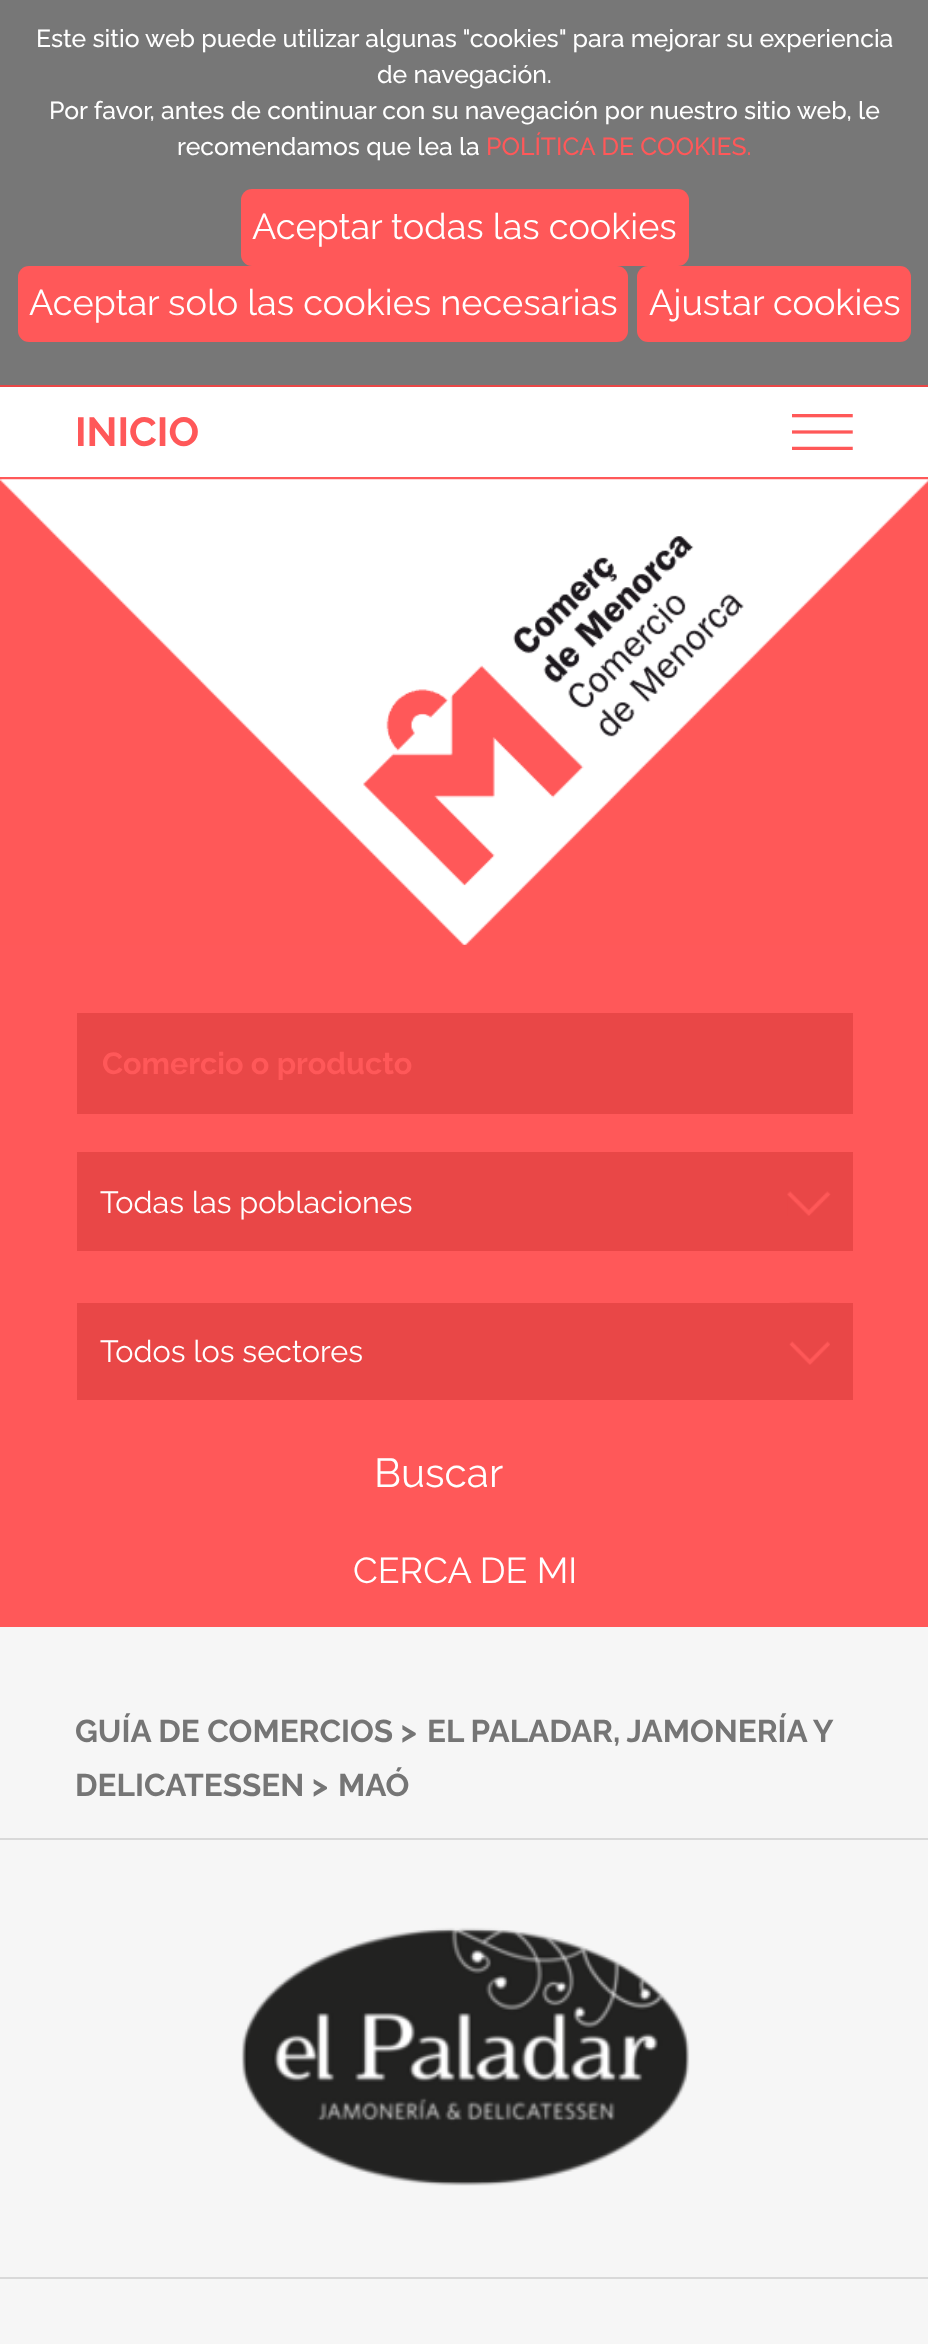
<?xml version="1.0" encoding="UTF-8"?>
<svg xmlns="http://www.w3.org/2000/svg" xmlns:xlink="http://www.w3.org/1999/xlink" width="928" height="2344">
  <defs>
    <clipPath id="clip1"><rect x="101" y="1044" width="727" height="36" /></clipPath>
  </defs>
  <rect width="100%" height="100%" fill="#f6f6f6" />
  <rect y="477" width="928" height="1150" fill="#ff5859" />
  <rect width="928" height="385" fill="#777777" />
  <rect x="241" y="189" width="448" height="77" rx="11" fill="#ff5859" />
  <rect x="18" y="266" width="610" height="76" rx="11" fill="#ff5859" />
  <rect x="637" y="266" width="274" height="76" rx="11" fill="#ff5859" />
  <rect y="387" width="928" height="90" fill="#ffffff" />
  <rect y="385" width="928" height="2" fill="#e94747" />
  <image x="792" y="414" width="61" height="36" xlink:href="image1.png" />
  <image x="0" y="479" width="928" height="466" xlink:href="image2.png" />
  <rect x="77" y="1013" width="776" height="101" fill="#e94747" />
  <rect x="77" y="1152" width="776" height="99" fill="#e94747" />
  <image x="787" y="1191" width="44" height="25" xlink:href="image3.png" />
  <rect x="77" y="1303" width="776" height="97" fill="#e94747" />
  <image x="789" y="1302" width="41" height="63" xlink:href="image4.png" />
  <rect y="1838" width="928" height="2" fill="#d9d9d9" />
  <rect y="2277" width="928" height="2" fill="#d9d9d9" />
  <image x="241" y="1927" width="449" height="259" xlink:href="image5.png" />
  <text x="36" y="47" style="font-family: Raleway; font-size: 24.75px; font-weight: 500; fill: #ffffff">Este sitio web puede utilizar algunas "cookies" para mejorar su experiencia</text>
  <text x="377" y="83" style="font-family: Raleway; font-size: 24.75px; font-weight: 500; fill: #ffffff">de navegación.</text>
  <text x="49" y="119" style="font-family: Raleway; font-size: 24.75px; font-weight: 500; fill: #ffffff">Por favor, antes de continuar con su navegación por nuestro sitio web, le</text>
  <text x="177" y="155" style="font-family: Raleway; font-size: 24.75px; font-weight: 500; fill: #ffffff">recomendamos que lea la</text>
  <text x="486" y="155" style="font-family: Raleway; font-size: 24.75px; font-weight: 500; fill: #ff5859">POLÍTICA DE COOKIES.</text>
  <text x="252" y="239" style="font-family: Raleway; font-size: 36px; fill: #ffffff">Aceptar todas las cookies</text>
  <text x="29" y="315" style="font-family: Raleway; font-size: 36px; fill: #ffffff">Aceptar solo las cookies necesarias</text>
  <text x="649" y="315" style="font-family: Raleway; font-size: 36px; fill: #ffffff">Ajustar cookies</text>
  <text x="75" y="446" style="font-family: Raleway; font-size: 40.5px; font-weight: bold; fill: #ff5859">INICIO</text>
  <g clip-path="url(#clip1)">
    <text x="102" y="1074" style="font-family: Raleway; font-size: 30.6px; font-weight: bold; fill: #ff5859">Comercio o producto</text>
  </g>
  <text x="100" y="1213" style="font-family: Raleway; font-size: 30.6px; fill: #ffffff">Todas las poblaciones</text>
  <text x="100" y="1362" style="font-family: Raleway; font-size: 30.6px; fill: #ffffff">Todos los sectores</text>
  <text x="374" y="1487" style="font-family: Raleway; font-size: 40.5px; fill: #ffffff">Buscar</text>
  <text x="353" y="1583" style="font-family: Raleway; font-size: 36px; fill: #ffffff">CERCA DE MI</text>
  <text x="75" y="1742" style="font-family: Raleway; font-size: 31.5px; font-weight: bold; fill: #757575">GUÍA DE COMERCIOS &gt;</text>
  <text x="427" y="1742" word-spacing="-0.5" style="font-family: Raleway; font-size: 31.5px; font-weight: bold; fill: #757575">EL PALADAR, JAMONERÍA Y</text>
  <text x="75" y="1796" style="font-family: Raleway; font-size: 31.5px; font-weight: bold; fill: #757575">DELICATESSEN &gt;</text>
  <text x="338" y="1796" style="font-family: Raleway; font-size: 31.5px; font-weight: bold; fill: #757575">MAÓ</text>
</svg>
